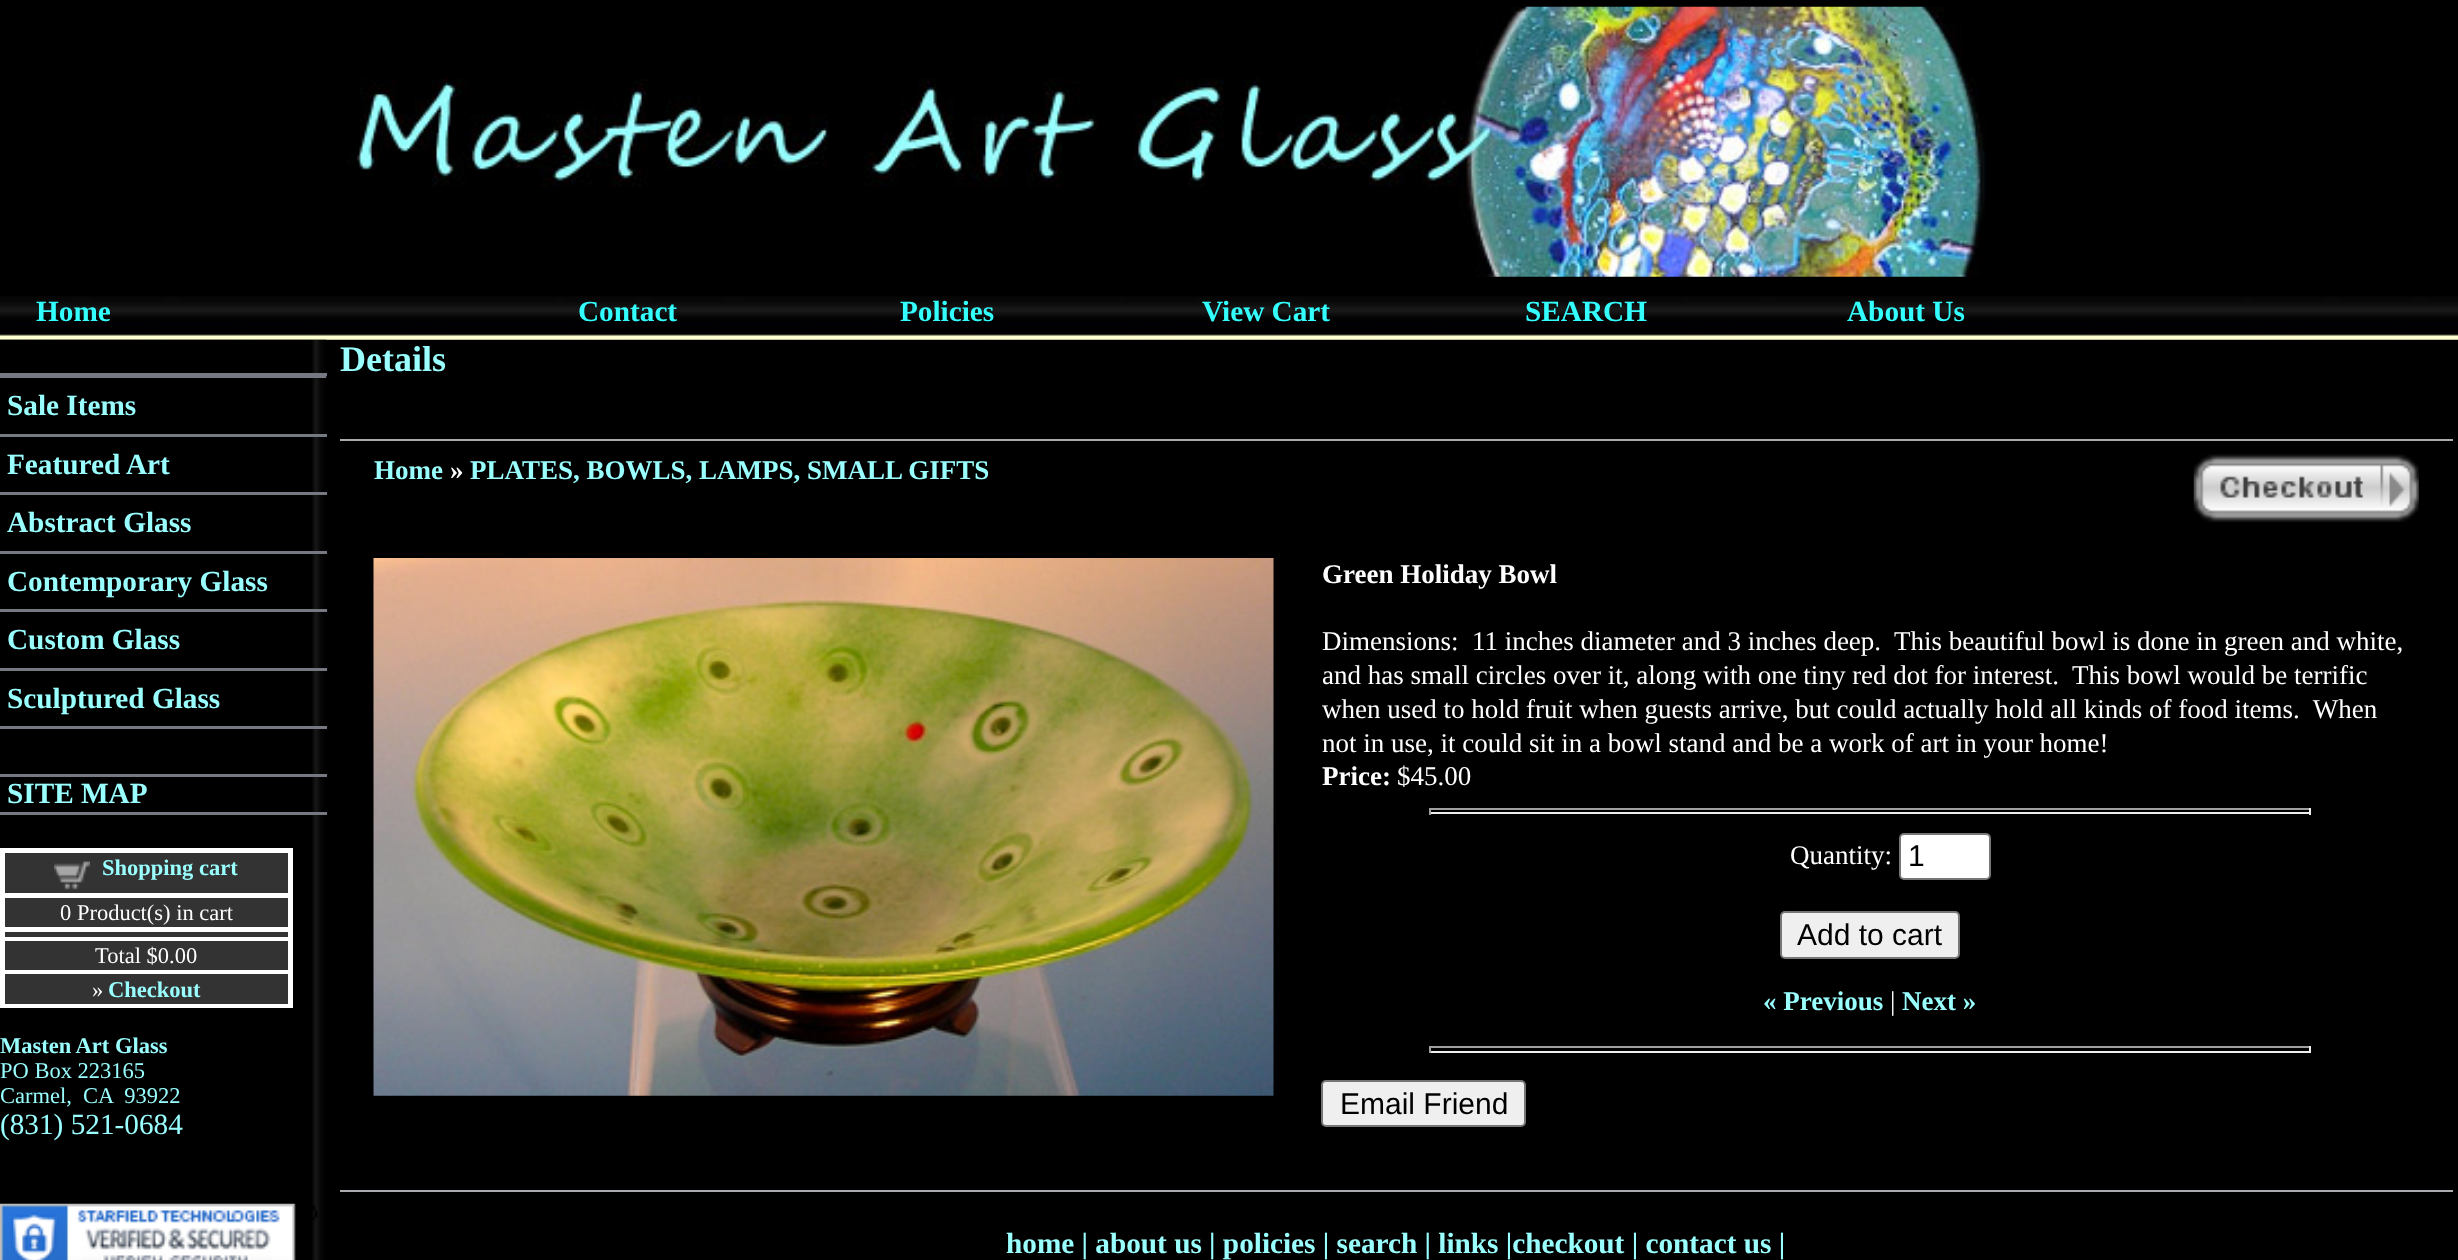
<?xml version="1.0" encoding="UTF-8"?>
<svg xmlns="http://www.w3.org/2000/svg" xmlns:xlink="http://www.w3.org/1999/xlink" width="2458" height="1260">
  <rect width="100%" height="100%" fill="#000000" />
  <image x="347" y="6" width="1639" height="271" xlink:href="image1.png" />
  <image x="0" y="296" width="2458" height="44" xlink:href="image2.png" />
  <image x="0" y="339" width="327" height="921" xlink:href="image3.png" />
  <rect y="373" width="327" height="3" fill="#767981" />
  <image x="0" y="376" width="327" height="2" xlink:href="image4.png" />
  <rect y="434" width="327" height="3" fill="#767981" />
  <rect y="492" width="327" height="3" fill="#767981" />
  <rect y="551" width="327" height="3" fill="#767981" />
  <rect y="609" width="327" height="3" fill="#767981" />
  <rect y="668" width="327" height="3" fill="#767981" />
  <rect y="726" width="327" height="3" fill="#767981" />
  <rect y="774" width="327" height="3" fill="#767981" />
  <rect y="812" width="327" height="3" fill="#767981" />
  <rect y="848" width="293" height="160" fill="#ffffff" />
  <rect x="5" y="853" width="283" height="40" fill="#333333" />
  <image x="54" y="861" width="36" height="29" xlink:href="image5.png" />
  <rect x="5" y="898" width="283" height="29" fill="#333333" />
  <rect x="5" y="932" width="283" height="5" fill="#333333" />
  <rect x="5" y="941" width="283" height="29" fill="#333333" />
  <rect x="5" y="974" width="283" height="30" fill="#333333" />
  <image x="0" y="1203" width="318" height="57" xlink:href="image6.png" />
  <rect x="340" y="439" width="2113" height="2" fill="#aaaaaf" />
  <image x="2193" y="454" width="226" height="68" xlink:href="image7.png" />
  <image x="373" y="558" width="901" height="538" xlink:href="image8.png" />
  <rect x="1429" y="808" width="882" height="2" fill="#9f9f9f" />
  <rect x="2309" y="808" width="2" height="7" fill="#eeeeee" />
  <rect x="1429" y="812" width="882" height="2" fill="#eeeeee" />
  <rect x="1429" y="808" width="2" height="7" fill="#9f9f9f" />
  <rect x="1900" y="834" width="90" height="45" rx="4" fill="#ffffff" stroke="#767676" stroke-width="2" />
  <rect x="1781" y="912" width="178" height="46" rx="4" fill="#efefef" stroke="#767676" stroke-width="2" />
  <rect x="1429" y="1046" width="882" height="2" fill="#9f9f9f" />
  <rect x="2309" y="1046" width="2" height="7" fill="#eeeeee" />
  <rect x="1429" y="1051" width="882" height="2" fill="#eeeeee" />
  <rect x="1429" y="1046" width="2" height="7" fill="#9f9f9f" />
  <rect x="1322" y="1081" width="203" height="45" rx="4" fill="#efefef" stroke="#767676" stroke-width="2" />
  <rect x="340" y="1190" width="2113" height="2" fill="#aaaaaf" />
  <text x="36" y="321" style="font-family: Liberation Serif; font-size: 29.25px; font-weight: bold; fill: #33ffff">Home</text>
  <text x="578" y="321" style="font-family: Liberation Serif; font-size: 29.25px; font-weight: bold; fill: #33ffff">Contact</text>
  <text x="900" y="321" style="font-family: Liberation Serif; font-size: 29.25px; font-weight: bold; fill: #33ffff">Policies</text>
  <text x="1202" y="321" style="font-family: Liberation Serif; font-size: 29.25px; font-weight: bold; fill: #33ffff">View Cart</text>
  <text x="1525" y="321" style="font-family: Liberation Serif; font-size: 29.25px; font-weight: bold; fill: #33ffff">SEARCH</text>
  <text x="1847" y="321" style="font-family: Liberation Serif; font-size: 29.25px; font-weight: bold; fill: #33ffff">About Us</text>
  <text x="7" y="415" style="font-family: Liberation Serif; font-size: 29.25px; font-weight: bold; fill: #99ffff">Sale Items</text>
  <text x="7" y="474" style="font-family: Liberation Serif; font-size: 29.25px; font-weight: bold; fill: #99ffff">Featured</text>
  <text x="126" y="474" style="font-family: Liberation Serif; font-size: 29.25px; font-weight: bold; fill: #99ffff">Art</text>
  <text x="7" y="532" style="font-family: Liberation Serif; font-size: 29.25px; font-weight: bold; fill: #99ffff">Abstract Glass</text>
  <text x="7" y="591" style="font-family: Liberation Serif; font-size: 29.25px; font-weight: bold; fill: #99ffff">Contemporary Glass</text>
  <text x="7" y="649" style="font-family: Liberation Serif; font-size: 29.25px; font-weight: bold; fill: #99ffff">Custom Glass</text>
  <text x="7" y="708" style="font-family: Liberation Serif; font-size: 29.25px; font-weight: bold; fill: #99ffff">Sculptured Glass</text>
  <text x="7" y="803" style="font-family: Liberation Serif; font-size: 29.25px; font-weight: bold; fill: #99ffff">SITE MAP</text>
  <text x="102" y="875" style="font-family: Liberation Serif; font-size: 22.5px; font-weight: bold; fill: #99ffff">Shopping cart</text>
  <text x="60" y="920" style="font-family: Liberation Serif; font-size: 22.5px; fill: #ffffff">0 Product(s) in cart</text>
  <text x="95" y="963" style="font-family: Liberation Serif; font-size: 22.5px; fill: #ffffff">Total $0.00</text>
  <text x="92" y="997" style="font-family: Liberation Serif; font-size: 22.5px; fill: #ffffff">»</text>
  <text x="108" y="997" style="font-family: Liberation Serif; font-size: 22.5px; font-weight: bold; fill: #99ffff">Checkout</text>
  <text x="0" y="1053" style="font-family: Liberation Serif; font-size: 22.5px; font-weight: bold; fill: #99ffff">Masten Art Glass</text>
  <text x="0" y="1078" style="font-family: Liberation Serif; font-size: 22.5px; fill: #99ffff">PO Box 223165</text>
  <text x="0" y="1103" style="font-family: Liberation Serif; font-size: 22.5px; fill: #99ffff" xml:space="preserve">Carmel,  CA  93922</text>
  <text x="0" y="1134" style="font-family: Liberation Serif; font-size: 29.25px; fill: #99ffff">(831) 521-0684</text>
  <text x="340" y="371" style="font-family: Liberation Serif; font-size: 36px; font-weight: bold; fill: #99ffff">Details</text>
  <text x="374" y="479" style="font-family: Liberation Serif; font-size: 27px; font-weight: bold; fill: #99ffff">Home</text>
  <text x="450" y="479" style="font-family: Liberation Serif; font-size: 27px; font-weight: bold; fill: #ffffff">»</text>
  <text x="470" y="479" style="font-family: Liberation Serif; font-size: 27px; font-weight: bold; fill: #99ffff">PLATES, BOWLS, LAMPS, SMALL GIFTS</text>
  <text x="1322" y="583" style="font-family: Liberation Serif; font-size: 27px; font-weight: bold; fill: #ffffff">Green Holiday Bowl</text>
  <text x="1322" y="650" style="font-family: Liberation Serif; font-size: 27px; fill: #ffffff" xml:space="preserve">Dimensions:  11 inches diameter and 3 inches deep.  This beautiful bowl is done in green and white,</text>
  <text x="1322" y="684" style="font-family: Liberation Serif; font-size: 27px; fill: #ffffff" xml:space="preserve">and has small circles over it, along with one tiny red dot for interest.  This bowl would be terrific</text>
  <text x="1322" y="718" style="font-family: Liberation Serif; font-size: 27px; fill: #ffffff" xml:space="preserve">when used to hold fruit when guests arrive, but could actually hold all kinds of food items.  When</text>
  <text x="1322" y="752" style="font-family: Liberation Serif; font-size: 27px; fill: #ffffff">not in use, it could sit in a bowl stand and be a work of art in your home!</text>
  <text x="1322" y="785" style="font-family: Liberation Serif; font-size: 27px; font-weight: bold; fill: #ffffff">Price:</text>
  <text x="1397" y="785" style="font-family: Liberation Serif; font-size: 27px; fill: #ffffff">$45.00</text>
  <text x="1790" y="864" style="font-family: Liberation Serif; font-size: 27px; fill: #ffffff">Quantity:</text>
  <text x="1908" y="866" style="font-family: Liberation Sans; font-size: 30px; fill: #000000">1</text>
  <text x="1797" y="945" style="font-family: Liberation Sans; font-size: 30px; fill: #000000">Add to cart</text>
  <text x="1763" y="1010" style="font-family: Liberation Serif; font-size: 27px; font-weight: bold; fill: #99ffff">« Previous</text>
  <text x="1890" y="1010" style="font-family: Liberation Serif; font-size: 27px; fill: #ffffff">|</text>
  <text x="1902" y="1010" style="font-family: Liberation Serif; font-size: 27px; font-weight: bold; fill: #99ffff">Next »</text>
  <text x="1340" y="1114" style="font-family: Liberation Sans; font-size: 30px; fill: #000000">Email Friend</text>
  <text x="1006" y="1253" style="font-family: Liberation Serif; font-size: 29.25px; font-weight: bold; fill: #99ffff">home | about us | policies | search | links |checkout | contact us |</text>
</svg>
